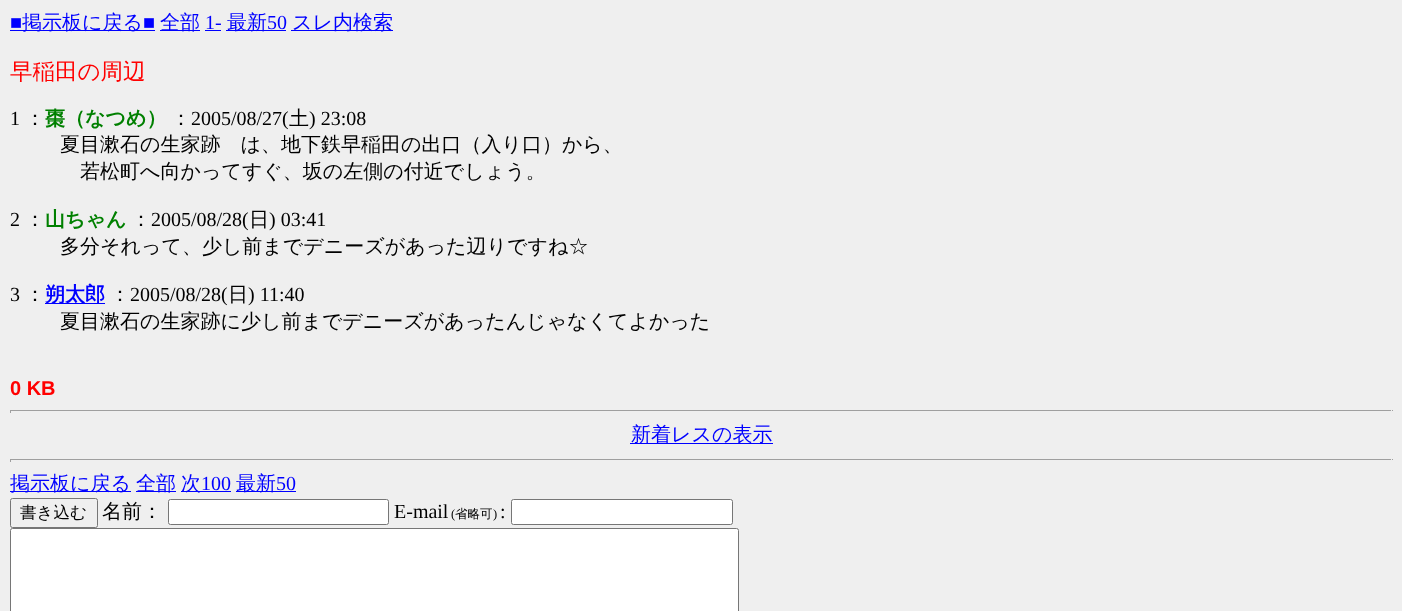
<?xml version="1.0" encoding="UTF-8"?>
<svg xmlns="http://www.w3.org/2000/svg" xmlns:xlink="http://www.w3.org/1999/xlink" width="1402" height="611">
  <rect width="100%" height="100%" fill="#efefef" />
  <rect x="10" y="30" width="145" height="1" fill="#0000ff" />
  <rect x="160" y="30" width="40" height="1" fill="#0000ff" />
  <rect x="205" y="30" width="16" height="1" fill="#0000ff" />
  <rect x="226" y="30" width="60" height="1" fill="#0000ff" />
  <rect x="291" y="30" width="102" height="1" fill="#0000ff" />
  <rect x="45" y="303" width="60" height="1" fill="#0000ff" />
  <rect x="10" y="410" width="1383" height="1" fill="#9f9f9f" />
  <rect x="1391" y="410" width="1" height="3" fill="#eeeeee" />
  <rect x="10" y="410" width="1" height="3" fill="#9f9f9f" />
  <rect x="630" y="443" width="143" height="1" fill="#0000ff" />
  <rect x="10" y="459" width="1383" height="1" fill="#9f9f9f" />
  <rect x="1391" y="459" width="1" height="3" fill="#eeeeee" />
  <rect x="10" y="459" width="1" height="3" fill="#9f9f9f" />
  <rect x="10" y="491" width="121" height="1" fill="#0000ff" />
  <rect x="136" y="491" width="40" height="1" fill="#0000ff" />
  <rect x="181" y="491" width="50" height="1" fill="#0000ff" />
  <rect x="236" y="491" width="60" height="1" fill="#0000ff" />
  <rect x="10.5" y="498.5" width="87" height="29" rx="2" fill="none" stroke="#767676" />
  <rect x="168.5" y="499.5" width="220" height="25" rx="2" fill="#ffffff" stroke="#767676" />
  <rect x="511.5" y="499.5" width="221" height="25" rx="2" fill="#ffffff" stroke="#767676" />
  <rect x="10.5" y="528.5" width="728" height="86" rx="2" fill="#ffffff" stroke="#767676" />
  <text x="10" y="29" style="font-family: Liberation Serif; font-size: 20px; fill: #0000ff">■</text>
  <text x="22" y="29" style="font-family: WenQuanYi Zen Hei; font-size: 20px; font-weight: 500; fill: #0000ff">掲示板に戻る</text>
  <text x="143" y="29" style="font-family: Liberation Serif; font-size: 20px; fill: #0000ff">■</text>
  <text x="160" y="29" style="font-family: WenQuanYi Zen Hei; font-size: 20px; font-weight: 500; fill: #0000ff">全部</text>
  <text x="205" y="29" style="font-family: Liberation Serif; font-size: 20px; fill: #0000ff">1-</text>
  <text x="227" y="29" style="font-family: WenQuanYi Zen Hei; font-size: 20px; font-weight: 500; fill: #0000ff">最新</text>
  <text x="267" y="29" style="font-family: Liberation Serif; font-size: 20px; fill: #0000ff">50</text>
  <text x="292" y="29" style="font-family: WenQuanYi Zen Hei; font-size: 20px; font-weight: 500; fill: #0000ff">スレ内検索</text>
  <text x="10" y="79" style="font-family: WenQuanYi Zen Hei; font-size: 22.5px; font-weight: 500; fill: #ff0000">早稲田の周辺</text>
  <text x="10" y="125" style="font-family: Liberation Serif; font-size: 20px; fill: #000000">1</text>
  <text x="25" y="125" style="font-family: WenQuanYi Zen Hei; font-size: 20px; font-weight: 500; fill: #000000">：</text>
  <text x="45" y="125" style="font-family: WenQuanYi Zen Hei; font-size: 20px; font-weight: bold; fill: #008000">棗（なつめ）</text>
  <text x="171" y="125" style="font-family: WenQuanYi Zen Hei; font-size: 20px; font-weight: 500; fill: #000000">：</text>
  <text x="191" y="125" style="font-family: Liberation Serif; font-size: 20px; fill: #000000">2005/08/27(</text>
  <text x="289" y="125" style="font-family: WenQuanYi Zen Hei; font-size: 20px; font-weight: 500; fill: #000000">土</text>
  <text x="309" y="125" style="font-family: Liberation Serif; font-size: 20px; fill: #000000">) 23:08</text>
  <text x="60" y="151" style="font-family: WenQuanYi Zen Hei; font-size: 20px; font-weight: 500; fill: #000000">夏目漱石の生家跡　は、地下鉄早稲田の出口（入り口）から、</text>
  <text x="80" y="178" style="font-family: WenQuanYi Zen Hei; font-size: 20px; font-weight: 500; fill: #000000">若松町へ向かってすぐ、坂の左側の付近でしょう。</text>
  <text x="10" y="226" style="font-family: Liberation Serif; font-size: 20px; fill: #000000">2</text>
  <text x="25" y="226" style="font-family: WenQuanYi Zen Hei; font-size: 20px; font-weight: 500; fill: #000000">：</text>
  <text x="45" y="226" style="font-family: WenQuanYi Zen Hei; font-size: 20px; font-weight: bold; fill: #008000">山ちゃん</text>
  <text x="131" y="226" style="font-family: WenQuanYi Zen Hei; font-size: 20px; font-weight: 500; fill: #000000">：</text>
  <text x="151" y="226" style="font-family: Liberation Serif; font-size: 20px; fill: #000000">2005/08/28(</text>
  <text x="249" y="226" style="font-family: WenQuanYi Zen Hei; font-size: 20px; font-weight: 500; fill: #000000">日</text>
  <text x="269" y="226" style="font-family: Liberation Serif; font-size: 20px; fill: #000000">) 03:41</text>
  <text x="60" y="253" style="font-family: WenQuanYi Zen Hei; font-size: 20px; font-weight: 500; fill: #000000">多分それって、少し前までデニーズがあった辺りですね☆</text>
  <text x="10" y="301" style="font-family: Liberation Serif; font-size: 20px; fill: #000000">3</text>
  <text x="25" y="301" style="font-family: WenQuanYi Zen Hei; font-size: 20px; font-weight: 500; fill: #000000">：</text>
  <text x="45" y="301" style="font-family: WenQuanYi Zen Hei; font-size: 20px; font-weight: bold; fill: #0000ff">朔太郎</text>
  <text x="110" y="301" style="font-family: WenQuanYi Zen Hei; font-size: 20px; font-weight: 500; fill: #000000">：</text>
  <text x="130" y="301" style="font-family: Liberation Serif; font-size: 20px; fill: #000000">2005/08/28(</text>
  <text x="228" y="301" style="font-family: WenQuanYi Zen Hei; font-size: 20px; font-weight: 500; fill: #000000">日</text>
  <text x="248" y="301" style="font-family: Liberation Serif; font-size: 20px; fill: #000000">) 11:40</text>
  <text x="60" y="328" style="font-family: WenQuanYi Zen Hei; font-size: 20px; font-weight: 500; fill: #000000">夏目漱石の生家跡に少し前までデニーズがあったんじゃなくてよかった</text>
  <text x="10" y="395" style="font-family: Liberation Sans; font-size: 20px; font-weight: bold; fill: #ff0000">0 KB</text>
  <text x="631" y="441" style="font-family: WenQuanYi Zen Hei; font-size: 20px; font-weight: 500; fill: #0000ff">新着レスの表示</text>
  <text x="10" y="490" style="font-family: WenQuanYi Zen Hei; font-size: 20px; font-weight: 500; fill: #0000ff">掲示板に戻る</text>
  <text x="136" y="490" style="font-family: WenQuanYi Zen Hei; font-size: 20px; font-weight: 500; fill: #0000ff">全部</text>
  <text x="181" y="490" style="font-family: WenQuanYi Zen Hei; font-size: 20px; font-weight: 500; fill: #0000ff">次</text>
  <text x="201" y="490" style="font-family: Liberation Serif; font-size: 20px; fill: #0000ff">100</text>
  <text x="236" y="490" style="font-family: WenQuanYi Zen Hei; font-size: 20px; font-weight: 500; fill: #0000ff">最新</text>
  <text x="276" y="490" style="font-family: Liberation Serif; font-size: 20px; fill: #0000ff">50</text>
  <text x="20" y="518" style="font-family: WenQuanYi Zen Hei; font-size: 16.5px; font-weight: 500; fill: #000000">書き込む</text>
  <text x="102" y="518" style="font-family: WenQuanYi Zen Hei; font-size: 20px; font-weight: 500; fill: #000000">名前：</text>
  <text x="394" y="518" style="font-family: Liberation Serif; font-size: 20px; fill: #000000">E-mail</text>
  <text x="451" y="518" style="font-family: Liberation Serif; font-size: 12.5px; fill: #000000">(</text>
  <text x="455" y="518" style="font-family: WenQuanYi Zen Hei; font-size: 12.5px; font-weight: 500; fill: #000000">省略可</text>
  <text x="493" y="518" style="font-family: Liberation Serif; font-size: 12.5px; fill: #000000">)</text>
  <text x="500" y="518" style="font-family: Liberation Serif; font-size: 20px; fill: #000000">:</text>
</svg>
